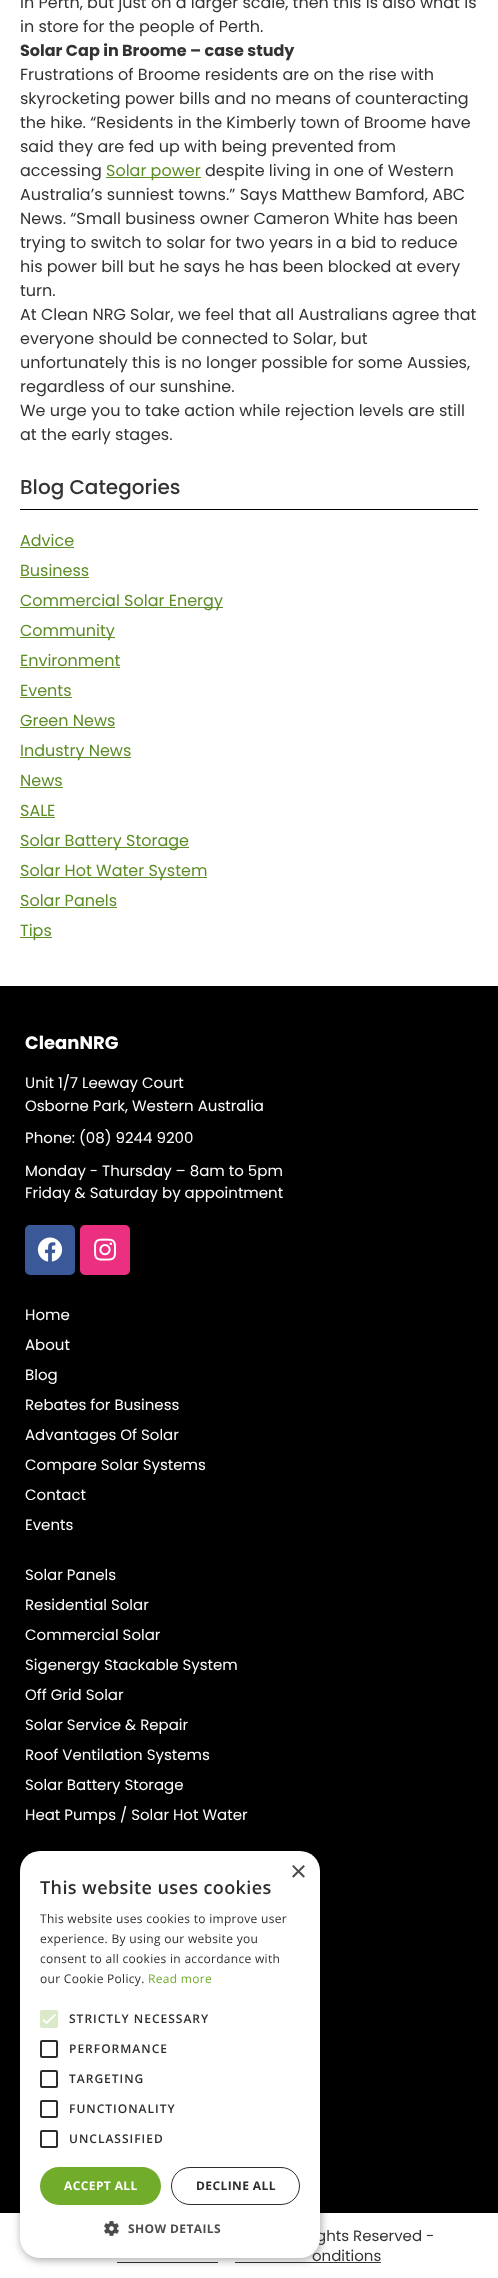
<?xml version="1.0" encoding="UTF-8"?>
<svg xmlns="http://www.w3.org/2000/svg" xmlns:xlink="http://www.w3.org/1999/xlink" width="498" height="2278">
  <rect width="100%" height="100%" fill="#ffffff" />
  <rect x="106" y="177" width="95" height="1" fill="#5d8d27" />
  <rect x="20" y="509" width="458" height="1" fill="#000000" />
  <rect x="20" y="547" width="54" height="1" fill="#5d8d27" />
  <rect x="20" y="577" width="69" height="1" fill="#5d8d27" />
  <rect x="20" y="607" width="203" height="1" fill="#5d8d27" />
  <rect x="20" y="637" width="95" height="1" fill="#5d8d27" />
  <rect x="20" y="667" width="100" height="1" fill="#5d8d27" />
  <rect x="20" y="697" width="52" height="1" fill="#5d8d27" />
  <rect x="20" y="727" width="95" height="1" fill="#5d8d27" />
  <rect x="20" y="757" width="111" height="1" fill="#5d8d27" />
  <rect x="20" y="787" width="43" height="1" fill="#5d8d27" />
  <rect x="20" y="817" width="35" height="1" fill="#5d8d27" />
  <rect x="20" y="847" width="169" height="1" fill="#5d8d27" />
  <rect x="20" y="877" width="187" height="1" fill="#5d8d27" />
  <rect x="20" y="907" width="97" height="1" fill="#5d8d27" />
  <rect x="20" y="937" width="32" height="1" fill="#5d8d27" />
  <rect y="986" width="498" height="1227" fill="#000000" />
  <rect x="25" y="1225" width="50" height="50" rx="5" fill="#3b5998" />
  <image x="37" y="1237" width="26" height="25" xlink:href="image1.png" />
  <rect x="80" y="1225" width="50" height="50" rx="5" fill="#ec3081" />
  <image x="94" y="1238" width="22" height="23" xlink:href="image2.png" />
  <rect x="235" y="2262" width="146" height="1" fill="#333333" />
  <rect x="117" y="2262" width="101" height="1" fill="#333333" />
  <rect x="21" y="1853" width="300" height="407" rx="20" fill="#000000" fill-opacity="0.35" filter="blur(4px)" />
  <text x="20" y="8" style="font-family: Poppins; font-size: 16px; fill: #333333">in Perth, but just on a larger scale, then this is also what is</text>
  <text x="20" y="32" style="font-family: Poppins; font-size: 16px; fill: #333333">in store for the people of Perth.</text>
  <text x="20" y="56" style="font-family: Poppins; font-size: 16px; font-weight: bold; fill: #333333">Solar Cap in Broome – case study</text>
  <text x="20" y="80" style="font-family: Poppins; font-size: 16px; fill: #333333">Frustrations of Broome residents are on the rise with</text>
  <text x="20" y="104" style="font-family: Poppins; font-size: 16px; fill: #333333">skyrocketing power bills and no means of counteracting</text>
  <text x="20" y="128" style="font-family: Poppins; font-size: 16px; fill: #333333">the hike. “Residents in the Kimberly town of Broome have</text>
  <text x="20" y="152" style="font-family: Poppins; font-size: 16px; fill: #333333">said they are fed up with being prevented from</text>
  <text x="20" y="176" style="font-family: Poppins; font-size: 16px; fill: #333333">accessing</text>
  <text x="106" y="176" style="font-family: Poppins; font-size: 16px; fill: #5d8d27">Solar power</text>
  <text x="205" y="176" style="font-family: Poppins; font-size: 16px; fill: #333333">despite living in one of Western</text>
  <text x="20" y="200" style="font-family: Poppins; font-size: 16px; fill: #333333">Australia’s sunniest towns.” Says Matthew Bamford, ABC</text>
  <text x="20" y="224" style="font-family: Poppins; font-size: 16px; fill: #333333">News. “Small business owner Cameron White has been</text>
  <text x="20" y="248" style="font-family: Poppins; font-size: 16px; fill: #333333">trying to switch to solar for two years in a bid to reduce</text>
  <text x="20" y="272" style="font-family: Poppins; font-size: 16px; fill: #333333">his power bill but he says he has been blocked at every</text>
  <text x="20" y="296" style="font-family: Poppins; font-size: 16px; fill: #333333">turn.</text>
  <text x="20" y="320" style="font-family: Poppins; font-size: 16px; fill: #333333">At Clean NRG Solar, we feel that all Australians agree that</text>
  <text x="20" y="344" style="font-family: Poppins; font-size: 16px; fill: #333333">everyone should be connected to Solar, but</text>
  <text x="20" y="368" style="font-family: Poppins; font-size: 16px; fill: #333333">unfortunately this is no longer possible for some Aussies,</text>
  <text x="20" y="392" style="font-family: Poppins; font-size: 16px; fill: #333333">regardless of our sunshine.</text>
  <text x="20" y="416" style="font-family: Poppins; font-size: 16px; fill: #333333">We urge you to take action while rejection levels are still</text>
  <text x="20" y="440" style="font-family: Poppins; font-size: 16px; fill: #333333">at the early stages.</text>
  <text x="20" y="494" style="font-family: Poppins; font-size: 20px; font-weight: 500; fill: #333333">Blog Categories</text>
  <text x="20" y="546" style="font-family: Poppins; font-size: 16px; fill: #5d8d27">Advice</text>
  <text x="20" y="576" style="font-family: Poppins; font-size: 16px; fill: #5d8d27">Business</text>
  <text x="20" y="606" style="font-family: Poppins; font-size: 16px; fill: #5d8d27">Commercial Solar Energy</text>
  <text x="20" y="636" style="font-family: Poppins; font-size: 16px; fill: #5d8d27">Community</text>
  <text x="20" y="666" style="font-family: Poppins; font-size: 16px; fill: #5d8d27">Environment</text>
  <text x="20" y="696" style="font-family: Poppins; font-size: 16px; fill: #5d8d27">Events</text>
  <text x="20" y="726" style="font-family: Poppins; font-size: 16px; fill: #5d8d27">Green News</text>
  <text x="20" y="756" style="font-family: Poppins; font-size: 16px; fill: #5d8d27">Industry News</text>
  <text x="20" y="786" style="font-family: Poppins; font-size: 16px; fill: #5d8d27">News</text>
  <text x="20" y="816" style="font-family: Poppins; font-size: 16px; fill: #5d8d27">SALE</text>
  <text x="20" y="846" style="font-family: Poppins; font-size: 16px; fill: #5d8d27">Solar Battery Storage</text>
  <text x="20" y="876" style="font-family: Poppins; font-size: 16px; fill: #5d8d27">Solar Hot Water System</text>
  <text x="20" y="906" style="font-family: Poppins; font-size: 16px; fill: #5d8d27">Solar Panels</text>
  <text x="20" y="936" style="font-family: Poppins; font-size: 16px; fill: #5d8d27">Tips</text>
  <text x="25" y="1049" style="font-family: Poppins; font-size: 18px; font-weight: bold; fill: #ffffff">CleanNRG</text>
  <text x="25" y="1088" style="font-family: Poppins; font-size: 15px; fill: #ffffff">Unit 1/7 Leeway Court</text>
  <text x="25" y="1111" style="font-family: Poppins; font-size: 15px; fill: #ffffff">Osborne Park, Western Australia</text>
  <text x="25" y="1143" style="font-family: Poppins; font-size: 15px; fill: #ffffff">Phone: (08) 9244 9200</text>
  <text x="25" y="1176" style="font-family: Poppins; font-size: 15px; fill: #ffffff">Monday - Thursday – 8am to 5pm</text>
  <text x="25" y="1198" style="font-family: Poppins; font-size: 15px; fill: #ffffff">Friday &amp; Saturday by appointment</text>
  <text x="25" y="1320" style="font-family: Poppins; font-size: 15px; fill: #ffffff">Home</text>
  <text x="25" y="1350" style="font-family: Poppins; font-size: 15px; fill: #ffffff">About</text>
  <text x="25" y="1380" style="font-family: Poppins; font-size: 15px; fill: #ffffff">Blog</text>
  <text x="25" y="1410" style="font-family: Poppins; font-size: 15px; fill: #ffffff">Rebates for Business</text>
  <text x="25" y="1440" style="font-family: Poppins; font-size: 15px; fill: #ffffff">Advantages Of Solar</text>
  <text x="25" y="1470" style="font-family: Poppins; font-size: 15px; fill: #ffffff">Compare Solar Systems</text>
  <text x="25" y="1500" style="font-family: Poppins; font-size: 15px; fill: #ffffff">Contact</text>
  <text x="25" y="1530" style="font-family: Poppins; font-size: 15px; fill: #ffffff">Events</text>
  <text x="25" y="1580" style="font-family: Poppins; font-size: 15px; fill: #ffffff">Solar Panels</text>
  <text x="25" y="1610" style="font-family: Poppins; font-size: 15px; fill: #ffffff">Residential Solar</text>
  <text x="25" y="1640" style="font-family: Poppins; font-size: 15px; fill: #ffffff">Commercial Solar</text>
  <text x="25" y="1670" style="font-family: Poppins; font-size: 15px; fill: #ffffff">Sigenergy Stackable System</text>
  <text x="25" y="1700" style="font-family: Poppins; font-size: 15px; fill: #ffffff">Off Grid Solar</text>
  <text x="25" y="1730" style="font-family: Poppins; font-size: 15px; fill: #ffffff">Solar Service &amp; Repair</text>
  <text x="25" y="1760" style="font-family: Poppins; font-size: 15px; fill: #ffffff">Roof Ventilation Systems</text>
  <text x="25" y="1790" style="font-family: Poppins; font-size: 15px; fill: #ffffff">Solar Battery Storage</text>
  <text x="25" y="1820" style="font-family: Poppins; font-size: 15px; fill: #ffffff">Heat Pumps / Solar Hot Water</text>
  <text x="316" y="2241" style="font-family: Poppins; font-size: 15px; fill: #333333">ghts Reserved -</text>
  <text x="312" y="2261" style="font-family: Poppins; font-size: 15px; fill: #333333">onditions</text>
  <rect x="20" y="1851" width="300" height="407" rx="20" fill="#ffffff" />
  <text x="290" y="1881" style="font-family: Liberation Sans; font-size: 29px; fill: #4d4d4d">×</text>
  <text x="40" y="1894" style="font-family: Open Sans; font-size: 18px; font-weight: 600; letter-spacing: 0.4px; fill: #2d2d2d">This website uses cookies</text>
  <text x="40" y="1923" style="font-family: Open Sans; font-size: 12px; letter-spacing: 0.3px; fill: #2d2d2d">This website uses cookies to improve user</text>
  <text x="40" y="1943" style="font-family: Open Sans; font-size: 12px; letter-spacing: 0.3px; fill: #2d2d2d">experience. By using our website you</text>
  <text x="40" y="1963" style="font-family: Open Sans; font-size: 12px; letter-spacing: 0.3px; fill: #2d2d2d">consent to all cookies in accordance with</text>
  <text x="40" y="1983" style="font-family: Open Sans; font-size: 12px; letter-spacing: 0.3px; fill: #2d2d2d">our Cookie Policy.</text>
  <text x="148" y="1983" style="font-family: Open Sans; font-size: 12px; letter-spacing: 0.3px; fill: #71ac2b">Read more</text>
  <rect x="40" y="2010" width="18" height="18" rx="2" fill="#dae9c8" />
  <path d="M 43 2019.5 l 3.5 3.5 l 9 -8.5" fill="none" stroke="#ffffff" stroke-width="1.8" />
  <text x="69" y="2023" style="font-family: Open Sans; font-size: 12px; font-weight: 600; letter-spacing: 1px; fill: #2d2d2d">STRICTLY NECESSARY</text>
  <rect x="41" y="2041" width="16" height="16" rx="1" fill="none" stroke="#2d2d2d" stroke-width="2" />
  <text x="69" y="2053" style="font-family: Open Sans; font-size: 12px; font-weight: 600; letter-spacing: 1px; fill: #2d2d2d">PERFORMANCE</text>
  <rect x="41" y="2071" width="16" height="16" rx="1" fill="none" stroke="#2d2d2d" stroke-width="2" />
  <text x="69" y="2083" style="font-family: Open Sans; font-size: 12px; font-weight: 600; letter-spacing: 1px; fill: #2d2d2d">TARGETING</text>
  <rect x="41" y="2101" width="16" height="16" rx="1" fill="none" stroke="#2d2d2d" stroke-width="2" />
  <text x="69" y="2113" style="font-family: Open Sans; font-size: 12px; font-weight: 600; letter-spacing: 1px; fill: #2d2d2d">FUNCTIONALITY</text>
  <rect x="41" y="2131" width="16" height="16" rx="1" fill="none" stroke="#2d2d2d" stroke-width="2" />
  <text x="69" y="2143" style="font-family: Open Sans; font-size: 12px; font-weight: 600; letter-spacing: 1px; fill: #2d2d2d">UNCLASSIFIED</text>
  <rect x="40" y="2167" width="121" height="38" rx="19" fill="#71ac2b" />
  <text x="64" y="2190" style="font-family: Open Sans; font-size: 12px; font-weight: bold; letter-spacing: 0.4px; fill: #ffffff">ACCEPT ALL</text>
  <rect x="171.5" y="2167.5" width="128" height="37" rx="18.5" fill="none" stroke="#2d2d2d" />
  <text x="196" y="2190" style="font-family: Open Sans; font-size: 12px; font-weight: bold; letter-spacing: 0.4px; fill: #2d2d2d">DECLINE ALL</text>
  <image x="104" y="2221" width="15" height="15" xlink:href="image3.png" />
  <text x="128" y="2233" style="font-family: Open Sans; font-size: 12px; font-weight: bold; letter-spacing: 0.4px; fill: #4d4d4d">SHOW DETAILS</text>
</svg>
